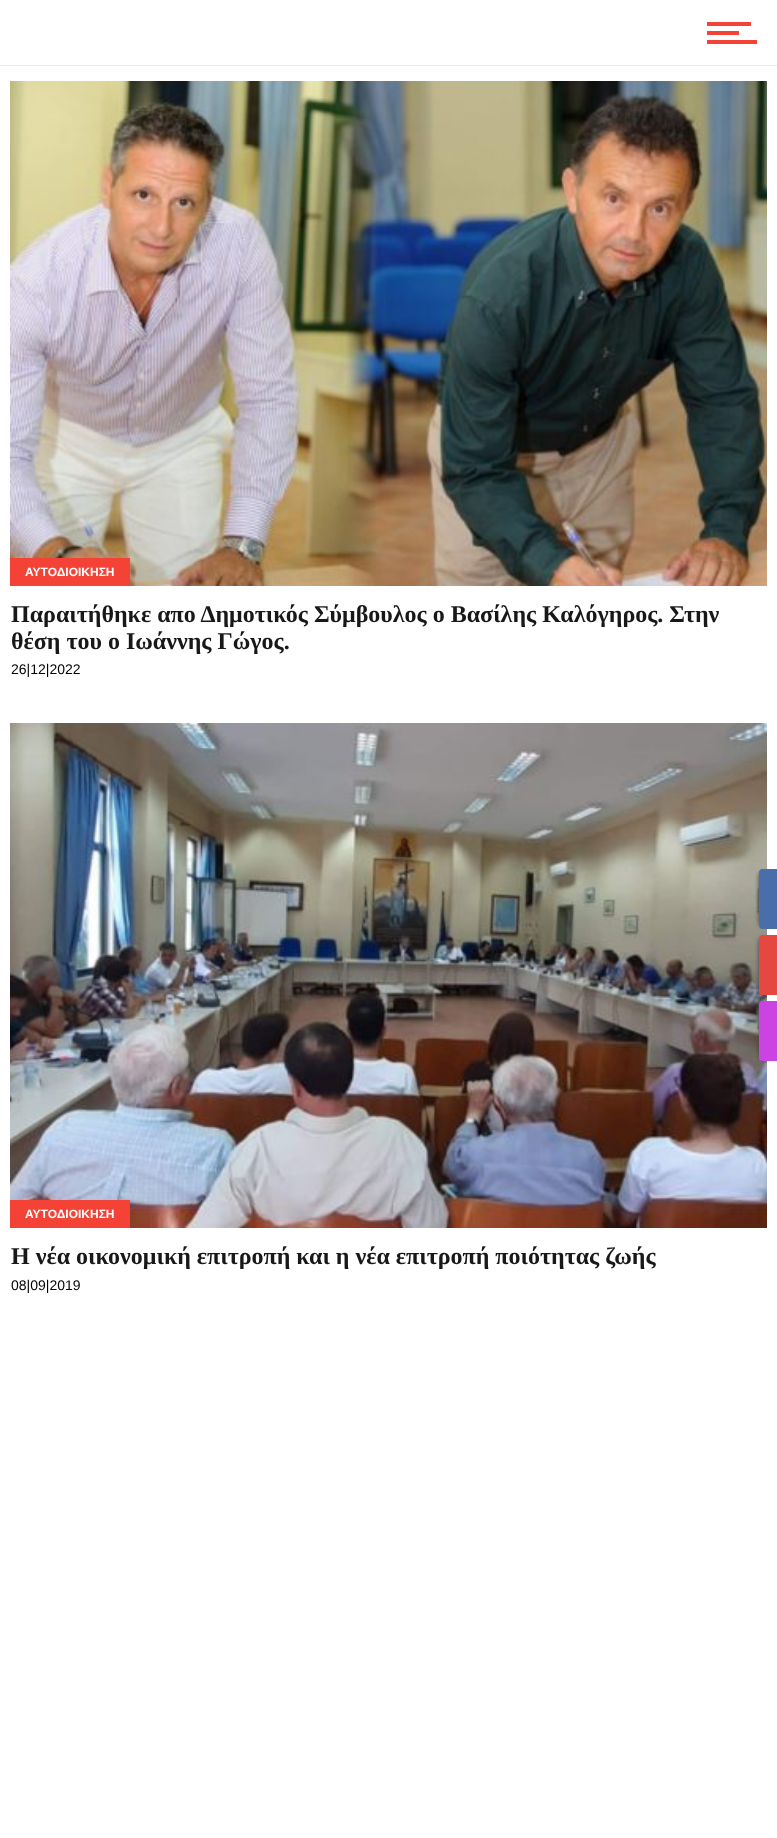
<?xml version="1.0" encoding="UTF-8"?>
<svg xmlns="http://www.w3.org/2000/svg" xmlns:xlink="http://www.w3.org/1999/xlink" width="777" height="1838">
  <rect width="100%" height="100%" fill="#ffffff" />
  <rect y="65" width="777" height="1" fill="#eaeaea" />
  <rect x="707" y="40" width="50" height="4" fill="#f44336" />
  <rect x="707" y="31" width="32" height="4" fill="#f44336" />
  <rect x="707" y="22" width="44" height="4" fill="#f44336" />
  <image x="10" y="81" width="757" height="505" xlink:href="image1.png" />
  <rect x="10" y="558" width="120" height="28" fill="#f44336" />
  <image x="10" y="723" width="757" height="505" xlink:href="image2.png" />
  <rect x="10" y="1200" width="120" height="28" fill="#f44336" />
  <rect x="759" y="873" width="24" height="52" fill="#444444" filter="blur(2px)" />
  <path d="M 762 869 h 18 v 60 h -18 c -1.5 0 -3 -1.5 -3 -3 v -54 c 0 -1.5 1.5 -3 3 -3 z" fill="#4a6ea9" />
  <rect x="759" y="939" width="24" height="52" fill="#444444" filter="blur(2px)" />
  <path d="M 762 935 h 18 v 60 h -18 c -1.5 0 -3 -1.5 -3 -3 v -54 c 0 -1.5 1.5 -3 3 -3 z" fill="#e44840" />
  <rect x="759" y="1005" width="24" height="52" fill="#444444" filter="blur(2px)" />
  <path d="M 762 1001 h 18 v 60 h -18 c -1.5 0 -3 -1.5 -3 -3 v -54 c 0 -1.5 1.5 -3 3 -3 z" fill="#cb43e0" />
  <text x="25" y="576" style="font-family: Liberation Sans; font-size: 12px; font-weight: bold; fill: #ffffff">ΑΥΤΟΔΙΟΙΚΗΣΗ</text>
  <text x="11" y="622" style="font-family: Liberation Serif; font-size: 24px; font-weight: bold; fill: #181818">Παραιτήθηκε απο Δημοτικός Σύμβουλος ο Βασίλης Καλόγηρος. Στην</text>
  <text x="11" y="649" style="font-family: Liberation Serif; font-size: 24px; font-weight: bold; fill: #181818">θέση του ο Ιωάννης Γώγος.</text>
  <text x="11" y="674" style="font-family: Liberation Sans; font-size: 14px; fill: #000000">26|12|2022</text>
  <text x="25" y="1218" style="font-family: Liberation Sans; font-size: 12px; font-weight: bold; fill: #ffffff">ΑΥΤΟΔΙΟΙΚΗΣΗ</text>
  <text x="11" y="1264" style="font-family: Liberation Serif; font-size: 24px; font-weight: bold; fill: #181818">Η νέα οικονομική επιτροπή και η νέα επιτροπή ποιότητας ζωής</text>
  <text x="11" y="1290" style="font-family: Liberation Sans; font-size: 14px; fill: #000000">08|09|2019</text>
</svg>
